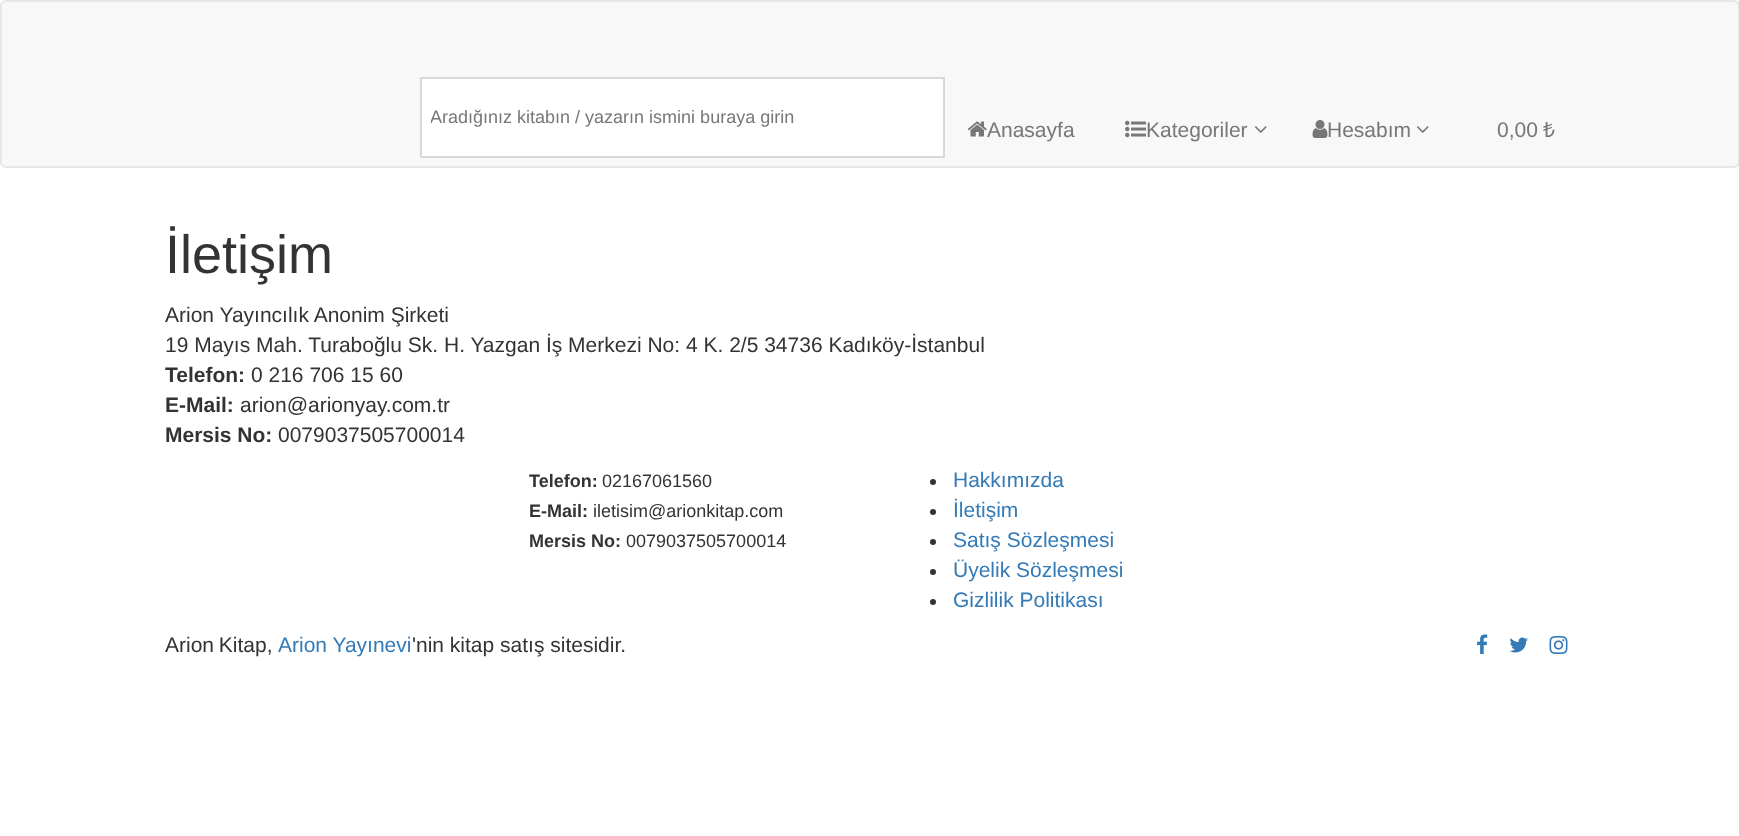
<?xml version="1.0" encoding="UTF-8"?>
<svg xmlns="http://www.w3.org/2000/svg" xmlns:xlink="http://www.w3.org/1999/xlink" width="1739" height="836">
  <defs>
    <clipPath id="clip1"><rect x="431" y="107" width="504" height="21" /></clipPath>
  </defs>
  <rect width="100%" height="100%" fill="#ffffff" />
  <rect x="1" y="1" width="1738" height="166" rx="5" fill="#f8f8f8" stroke="#e7e7e7" stroke-width="2" />
  <rect x="421" y="78" width="523" height="79" fill="#ffffff" stroke="#d8d8d8" stroke-width="2" />
  <image x="967" y="121" width="20" height="16" xlink:href="image1.png" />
  <image x="1125" y="120" width="21" height="18" xlink:href="image2.png" />
  <image x="1255" y="126" width="12" height="7" xlink:href="image3.png" />
  <image x="1312" y="120" width="16" height="18" xlink:href="image4.png" />
  <image x="1417" y="126" width="12" height="7" xlink:href="image3.png" />
  <circle cx="933" cy="482" r="3" fill="#333333" />
  <circle cx="933" cy="512" r="3" fill="#333333" />
  <circle cx="933" cy="542" r="3" fill="#333333" />
  <circle cx="933" cy="572" r="3" fill="#333333" />
  <circle cx="933" cy="602" r="3" fill="#333333" />
  <image x="1477" y="634" width="11" height="20" xlink:href="image5.png" />
  <image x="1509" y="637" width="19" height="16" xlink:href="image6.png" />
  <image x="1549" y="636" width="19" height="18" xlink:href="image7.png" />
  <g clip-path="url(#clip1)">
    <text x="430" y="123" style="font-family: Liberation Sans; font-size: 18px; fill: #777777">Aradığınız kitabın / yazarın ismini buraya girin</text>
  </g>
  <text x="987" y="137" style="font-family: Liberation Sans; font-size: 21px; fill: #777777">Anasayfa</text>
  <text x="1146" y="137" style="font-family: Liberation Sans; font-size: 21px; fill: #777777">Kategoriler</text>
  <text x="1327" y="137" style="font-family: Liberation Sans; font-size: 21px; fill: #777777">Hesabım</text>
  <text x="1497" y="137" style="font-family: Liberation Sans; font-size: 21px; fill: #777777">0,00</text>
  <text x="1543" y="137" style="font-family: Noto Sans; font-size: 21px; fill: #777777">₺</text>
  <text x="165" y="273" style="font-family: Liberation Sans; font-size: 54px; fill: #333333">İletişim</text>
  <text x="165" y="322" style="font-family: Liberation Sans; font-size: 21px; fill: #333333">Arion Yayıncılık Anonim Şirketi</text>
  <text x="165" y="352" style="font-family: Liberation Sans; font-size: 21px; fill: #333333">19 Mayıs Mah. Turaboğlu Sk. H. Yazgan İş Merkezi No: 4 K. 2/5 34736 Kadıköy-İstanbul</text>
  <text x="165" y="382" style="font-family: Liberation Sans; font-size: 21px; font-weight: bold; fill: #333333">Telefon:</text>
  <text x="251" y="382" style="font-family: Liberation Sans; font-size: 21px; fill: #333333">0 216 706 15 60</text>
  <text x="165" y="412" style="font-family: Liberation Sans; font-size: 21px; font-weight: bold; fill: #333333">E-Mail:</text>
  <text x="240" y="412" style="font-family: Liberation Sans; font-size: 21px; fill: #333333">arion@arionyay.com.tr</text>
  <text x="165" y="442" style="font-family: Liberation Sans; font-size: 21px; font-weight: bold; fill: #333333">Mersis No:</text>
  <text x="278" y="442" style="font-family: Liberation Sans; font-size: 21px; fill: #333333">0079037505700014</text>
  <text x="529" y="487" style="font-family: Liberation Sans; font-size: 18px; font-weight: bold; fill: #333333">Telefon:</text>
  <text x="602" y="487" style="font-family: Liberation Sans; font-size: 18px; fill: #333333">02167061560</text>
  <text x="529" y="517" style="font-family: Liberation Sans; font-size: 18px; font-weight: bold; fill: #333333">E-Mail:</text>
  <text x="593" y="517" style="font-family: Liberation Sans; font-size: 18px; fill: #333333">iletisim@arionkitap.com</text>
  <text x="529" y="547" style="font-family: Liberation Sans; font-size: 18px; font-weight: bold; fill: #333333">Mersis No:</text>
  <text x="626" y="547" style="font-family: Liberation Sans; font-size: 18px; fill: #333333">0079037505700014</text>
  <text x="953" y="487" style="font-family: Liberation Sans; font-size: 21px; fill: #337ab7">Hakkımızda</text>
  <text x="953" y="517" style="font-family: Liberation Sans; font-size: 21px; fill: #337ab7">İletişim</text>
  <text x="953" y="547" style="font-family: Liberation Sans; font-size: 21px; fill: #337ab7">Satış Sözleşmesi</text>
  <text x="953" y="577" style="font-family: Liberation Sans; font-size: 21px; fill: #337ab7">Üyelik Sözleşmesi</text>
  <text x="953" y="607" style="font-family: Liberation Sans; font-size: 21px; fill: #337ab7">Gizlilik Politikası</text>
  <text x="165" y="652" word-spacing="-1" style="font-family: Liberation Sans; font-size: 21px; fill: #333333">Arion Kitap,</text>
  <text x="278" y="652" style="font-family: Liberation Sans; font-size: 21px; fill: #337ab7">Arion Yayınevi</text>
  <text x="412" y="652" style="font-family: Liberation Sans; font-size: 21px; fill: #333333">'nin kitap satış sitesidir.</text>
</svg>
